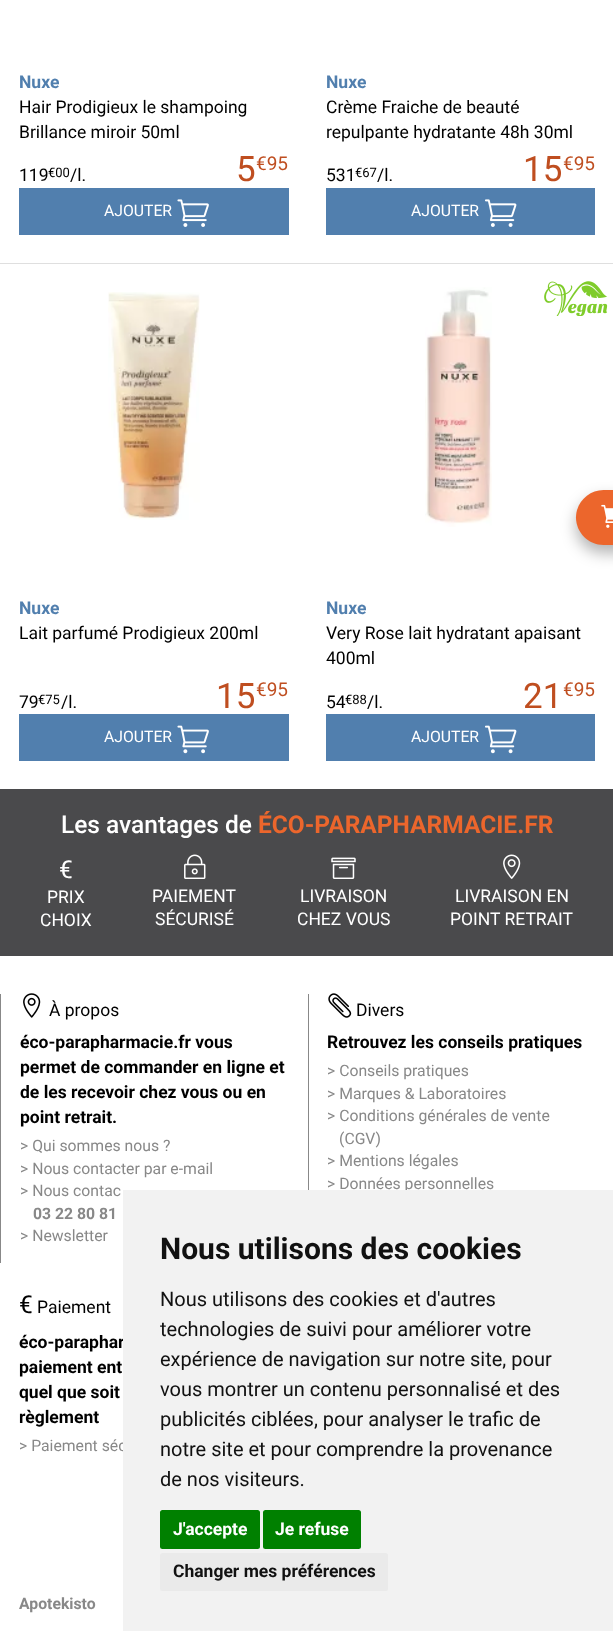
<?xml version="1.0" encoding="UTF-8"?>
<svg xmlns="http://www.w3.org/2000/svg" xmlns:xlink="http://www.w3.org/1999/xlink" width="613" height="1631">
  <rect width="100%" height="100%" fill="#ffffff" />
  <rect x="19" y="188" width="270" height="47" fill="#517fae" />
  <image x="177" y="199" width="32" height="28" xlink:href="image1.png" />
  <rect x="326" y="188" width="269" height="47" fill="#517fae" />
  <image x="485" y="199" width="32" height="28" xlink:href="image2.png" />
  <rect y="263" width="613" height="1" fill="#dfdfdf" />
  <image x="108" y="292" width="92" height="228" xlink:href="image3.png" />
  <rect x="19" y="714" width="270" height="47" fill="#517fae" />
  <image x="177" y="725" width="32" height="29" xlink:href="image4.png" />
  <image x="425" y="287" width="67" height="240" xlink:href="image5.png" />
  <image x="544" y="281" width="64" height="35" xlink:href="image6.png" />
  <rect x="326" y="714" width="269" height="47" fill="#517fae" />
  <image x="485" y="725" width="32" height="29" xlink:href="image7.png" />
  <rect x="576" y="498" width="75" height="55" rx="27.5" fill="#000000" fill-opacity="0.3" filter="blur(7.5px)" />
  <path d="M 603.5 490 h 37.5 v 55 h -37.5 c -15 0 -27.5 -12.5 -27.5 -27.5 c 0 -15 12.5 -27.5 27.5 -27.5 z" fill="#ec662c" />
  <image x="601" y="504" width="12" height="24" xlink:href="image8.png" />
  <rect y="789" width="613" height="167" fill="#4a4a4c" />
  <image x="184" y="854" width="22" height="25" xlink:href="image9.png" />
  <image x="331" y="857" width="25" height="22" xlink:href="image10.png" />
  <image x="503" y="854" width="18" height="25" xlink:href="image11.png" />
  <rect y="994" width="1" height="269" fill="#888888" />
  <image x="23" y="993" width="18" height="25" xlink:href="image12.png" />
  <rect x="308" y="994" width="1" height="196" fill="#888888" />
  <image x="328" y="993" width="24" height="25" xlink:href="image13.png" />
  <text x="19" y="88" style="font-family: Roboto; font-size: 17.5px; font-weight: bold; fill: #517fae">Nuxe</text>
  <text x="19" y="113" style="font-family: Roboto; font-size: 17.5px; fill: #000000">Hair Prodigieux le shampoing</text>
  <text x="19" y="138" style="font-family: Roboto; font-size: 17.5px; fill: #000000">Brillance miroir 50ml</text>
  <text x="19" y="181" style="font-family: Roboto; font-size: 17.5px; fill: #000000">119</text>
  <text x="48" y="177" style="font-family: Roboto; font-size: 13px; fill: #000000">€00</text>
  <text x="70" y="181" style="font-family: Roboto; font-size: 17.5px; fill: #000000">/l.</text>
  <text x="104" y="216" style="font-family: Roboto; font-size: 15.75px; fill: #ffffff">AJOUTER</text>
  <text x="236" y="181" style="font-family: Roboto; font-size: 35px; fill: #bf4e20">5</text>
  <text x="256" y="170" style="font-family: Roboto; font-size: 19px; fill: #bf4e20">€95</text>
  <text x="326" y="88" style="font-family: Roboto; font-size: 17.5px; font-weight: bold; fill: #517fae">Nuxe</text>
  <text x="326" y="113" style="font-family: Roboto; font-size: 17.5px; fill: #000000">Crème Fraiche de beauté</text>
  <text x="326" y="138" style="font-family: Roboto; font-size: 17.5px; fill: #000000">repulpante hydratante 48h 30ml</text>
  <text x="326" y="181" style="font-family: Roboto; font-size: 17.5px; fill: #000000">531</text>
  <text x="355" y="177" style="font-family: Roboto; font-size: 13px; fill: #000000">€67</text>
  <text x="377" y="181" style="font-family: Roboto; font-size: 17.5px; fill: #000000">/l.</text>
  <text x="411" y="216" style="font-family: Roboto; font-size: 15.75px; fill: #ffffff">AJOUTER</text>
  <text x="523" y="181" style="font-family: Roboto; font-size: 35px; fill: #bf4e20">15</text>
  <text x="563" y="170" style="font-family: Roboto; font-size: 19px; fill: #bf4e20">€95</text>
  <text x="19" y="614" style="font-family: Roboto; font-size: 17.5px; font-weight: bold; fill: #517fae">Nuxe</text>
  <text x="19" y="639" style="font-family: Roboto; font-size: 17.5px; fill: #000000">Lait parfumé Prodigieux 200ml</text>
  <text x="19" y="708" style="font-family: Roboto; font-size: 17.5px; fill: #000000">79</text>
  <text x="61" y="708" style="font-family: Roboto; font-size: 17.5px; fill: #000000">/l.</text>
  <text x="38" y="704" style="font-family: Roboto; font-size: 13px; fill: #000000">€75</text>
  <text x="104" y="742" style="font-family: Roboto; font-size: 15.75px; fill: #ffffff">AJOUTER</text>
  <text x="216" y="708" style="font-family: Roboto; font-size: 35px; fill: #bf4e20">15</text>
  <text x="256" y="696" style="font-family: Roboto; font-size: 19px; fill: #bf4e20">€95</text>
  <text x="326" y="614" style="font-family: Roboto; font-size: 17.5px; font-weight: bold; fill: #517fae">Nuxe</text>
  <text x="326" y="639" style="font-family: Roboto; font-size: 17.5px; fill: #000000">Very Rose lait hydratant apaisant</text>
  <text x="326" y="664" style="font-family: Roboto; font-size: 17.5px; fill: #000000">400ml</text>
  <text x="326" y="708" style="font-family: Roboto; font-size: 17.5px; fill: #000000">54</text>
  <text x="345" y="704" style="font-family: Roboto; font-size: 13px; fill: #000000">€88</text>
  <text x="367" y="708" style="font-family: Roboto; font-size: 17.5px; fill: #000000">/l.</text>
  <text x="411" y="742" style="font-family: Roboto; font-size: 15.75px; fill: #ffffff">AJOUTER</text>
  <text x="523" y="708" style="font-family: Roboto; font-size: 35px; fill: #bf4e20">21</text>
  <text x="563" y="696" style="font-family: Roboto; font-size: 19px; fill: #bf4e20">€95</text>
  <text x="61" y="833" style="font-family: Roboto; font-size: 24.5px; font-weight: 500; fill: #ffffff">Les avantages de</text>
  <text x="258" y="833" style="font-family: Roboto; font-size: 24.5px; font-weight: bold; fill: #ec662c">ÉCO-PARAPHARMACIE.FR</text>
  <text x="59" y="878" style="font-family: Roboto; font-size: 24.5px; fill: #ffffff">€</text>
  <text x="47" y="903" style="font-family: Roboto; font-size: 17.5px; fill: #ffffff">PRIX</text>
  <text x="40" y="926" style="font-family: Roboto; font-size: 17.5px; fill: #ffffff">CHOIX</text>
  <text x="152" y="902" style="font-family: Roboto; font-size: 17.5px; fill: #ffffff">PAIEMENT</text>
  <text x="155" y="925" style="font-family: Roboto; font-size: 17.5px; fill: #ffffff">SÉCURISÉ</text>
  <text x="300" y="902" style="font-family: Roboto; font-size: 17.5px; fill: #ffffff">LIVRAISON</text>
  <text x="297" y="925" style="font-family: Roboto; font-size: 17.5px; fill: #ffffff">CHEZ VOUS</text>
  <text x="455" y="902" style="font-family: Roboto; font-size: 17.5px; fill: #ffffff">LIVRAISON EN</text>
  <text x="450" y="925" style="font-family: Roboto; font-size: 17.5px; fill: #ffffff">POINT RETRAIT</text>
  <text x="49" y="1016" style="font-family: Roboto; font-size: 17.5px; fill: #000000">À propos</text>
  <text x="20" y="1048" style="font-family: Roboto; font-size: 17.5px; font-weight: bold; fill: #000000">éco-parapharmacie.fr vous</text>
  <text x="20" y="1073" style="font-family: Roboto; font-size: 17.5px; font-weight: bold; fill: #000000">permet de commander en ligne et</text>
  <text x="20" y="1098" style="font-family: Roboto; font-size: 17.5px; font-weight: bold; fill: #000000">de les recevoir chez vous ou en</text>
  <text x="20" y="1123" style="font-family: Roboto; font-size: 17.5px; font-weight: bold; fill: #000000">point retrait.</text>
  <text x="20" y="1151" style="font-family: Roboto; font-size: 15.75px; fill: #888888">&gt; Qui sommes nous ?</text>
  <text x="20" y="1174" style="font-family: Roboto; font-size: 15.75px; fill: #888888">&gt; Nous contacter par e-mail</text>
  <text x="20" y="1196" style="font-family: Roboto; font-size: 15.75px; fill: #888888">&gt; Nous contac</text>
  <text x="33" y="1219" style="font-family: Roboto; font-size: 15.75px; font-weight: bold; fill: #888888">03 22 80 81</text>
  <text x="20" y="1241" style="font-family: Roboto; font-size: 15.75px; fill: #888888">&gt; Newsletter</text>
  <text x="356" y="1016" style="font-family: Roboto; font-size: 17.5px; fill: #000000">Divers</text>
  <text x="327" y="1048" style="font-family: Roboto; font-size: 17.5px; font-weight: bold; fill: #000000">Retrouvez les conseils pratiques</text>
  <text x="327" y="1076" style="font-family: Roboto; font-size: 15.75px; fill: #888888">&gt; Conseils pratiques</text>
  <text x="327" y="1099" style="font-family: Roboto; font-size: 15.75px; fill: #888888">&gt; Marques &amp; Laboratoires</text>
  <text x="327" y="1121" style="font-family: Roboto; font-size: 15.75px; fill: #888888">&gt; Conditions générales de vente</text>
  <text x="339" y="1144" style="font-family: Roboto; font-size: 15.75px; fill: #888888">(CGV)</text>
  <text x="327" y="1166" style="font-family: Roboto; font-size: 15.75px; fill: #888888">&gt; Mentions légales</text>
  <text x="327" y="1189" style="font-family: Roboto; font-size: 15.75px; fill: #888888">&gt; Données personnelles</text>
  <text x="19" y="1313" style="font-family: Roboto; font-size: 24.5px; fill: #000000">€</text>
  <text x="37" y="1313" style="font-family: Roboto; font-size: 17.5px; fill: #000000">Paiement</text>
  <text x="19" y="1348" style="font-family: Roboto; font-size: 17.5px; font-weight: bold; fill: #000000">éco-paraphar</text>
  <text x="19" y="1373" style="font-family: Roboto; font-size: 17.5px; font-weight: bold; fill: #000000">paiement ent</text>
  <text x="19" y="1398" style="font-family: Roboto; font-size: 17.5px; font-weight: bold; fill: #000000">quel que soit</text>
  <text x="19" y="1423" style="font-family: Roboto; font-size: 17.5px; font-weight: bold; fill: #000000">règlement</text>
  <text x="19" y="1451" style="font-family: Roboto; font-size: 15.75px; fill: #888888">&gt; Paiement séc</text>
  <text x="19" y="1609" style="font-family: Roboto; font-size: 15.75px; font-weight: bold; fill: #888888">Apotekisto</text>
  <rect x="123" y="1190" width="490" height="441" fill="#f2f2f2" />
  <text x="160" y="1259" style="font-family: Roboto; font-size: 30px; font-weight: bold; fill: #111111">Nous utilisons des cookies</text>
  <text x="160" y="1306" style="font-family: Roboto; font-size: 20px; fill: #111111">Nous utilisons des cookies et d'autres</text>
  <text x="160" y="1336" style="font-family: Roboto; font-size: 20px; fill: #111111">technologies de suivi pour améliorer votre</text>
  <text x="160" y="1366" style="font-family: Roboto; font-size: 20px; fill: #111111">expérience de navigation sur notre site, pour</text>
  <text x="160" y="1396" style="font-family: Roboto; font-size: 20px; fill: #111111">vous montrer un contenu personnalisé et des</text>
  <text x="160" y="1426" style="font-family: Roboto; font-size: 20px; fill: #111111">publicités ciblées, pour analyser le trafic de</text>
  <text x="160" y="1456" style="font-family: Roboto; font-size: 20px; fill: #111111">notre site et pour comprendre la provenance</text>
  <text x="160" y="1486" style="font-family: Roboto; font-size: 20px; fill: #111111">de nos visiteurs.</text>
  <rect x="160" y="1510" width="100" height="39" rx="2.5" fill="#008000" />
  <text x="173" y="1535" style="font-family: Roboto; font-size: 17.5px; font-weight: bold; fill: #ffffff">J'accepte</text>
  <rect x="263" y="1510" width="98" height="39" rx="2.5" fill="#008000" />
  <text x="275" y="1535" style="font-family: Roboto; font-size: 17.5px; font-weight: bold; fill: #ffffff">Je refuse</text>
  <rect x="160" y="1553" width="228" height="38" rx="2.5" fill="#eaeaea" />
  <text x="173" y="1577" style="font-family: Roboto; font-size: 17.5px; font-weight: bold; fill: #111111">Changer mes préférences</text>
</svg>
